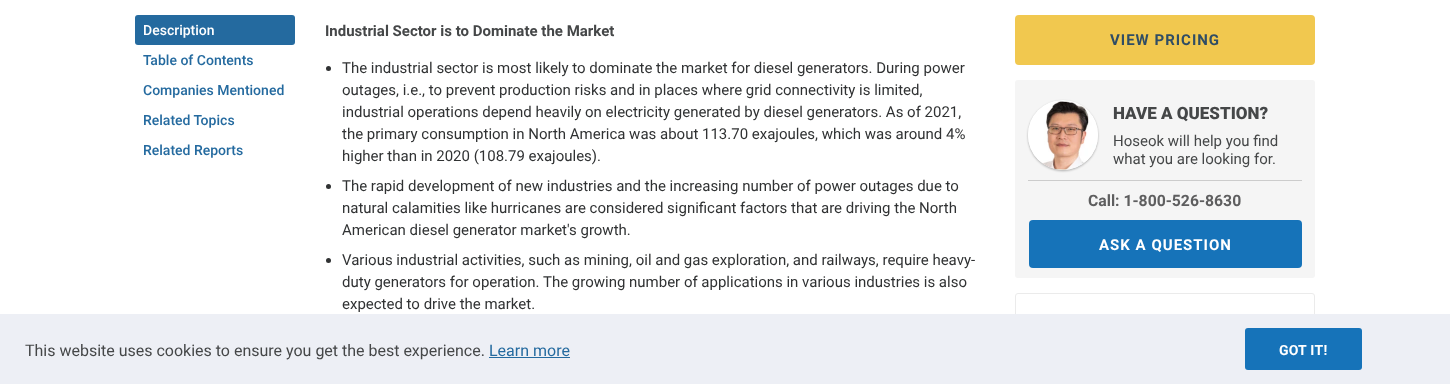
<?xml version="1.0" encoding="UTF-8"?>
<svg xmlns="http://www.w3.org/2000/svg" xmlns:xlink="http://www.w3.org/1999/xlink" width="1450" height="384">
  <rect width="100%" height="100%" fill="#ffffff" />
  <rect x="135" y="15" width="160" height="30" rx="3" fill="#246a9f" />
  <circle cx="328.5" cy="68.5" r="2.5" fill="#303233" />
  <circle cx="328.5" cy="186.5" r="2.5" fill="#303233" />
  <circle cx="328.5" cy="260.5" r="2.5" fill="#303233" />
  <rect x="1015" y="15" width="300" height="50" rx="4" fill="#f1c84f" />
  <rect x="1015" y="80" width="300" height="198" rx="3" fill="#f5f5f5" />
  <rect x="1028" y="101" width="70" height="70" rx="35" fill="#000000" fill-opacity="0.3" filter="blur(1px)" />
  <circle cx="1063" cy="135" r="35" fill="#ffffff" />
  <image x="1028" y="101" width="70" height="69" xlink:href="image1.png" />
  <rect x="1028" y="180" width="274" height="1" fill="#cccccc" />
  <rect x="1029" y="220" width="273" height="48" rx="4" fill="#1673b9" />
  <rect x="1015.5" y="293.5" width="299" height="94" rx="2.5" fill="none" stroke="#ebebeb" />
  <rect y="314" width="1450" height="70" fill="#edeff5" />
  <rect x="489" y="357" width="81" height="1" fill="#246a9f" />
  <rect x="1245" y="328" width="117" height="42" rx="3" fill="#1673b9" />
  <text x="143" y="35" style="font-family: Roboto; font-size: 14px; font-weight: 500; fill: #ffffff">Description</text>
  <text x="143" y="65" style="font-family: Roboto; font-size: 14px; font-weight: 500; fill: #246a9f">Table of Contents</text>
  <text x="143" y="95" style="font-family: Roboto; font-size: 14px; font-weight: 500; fill: #246a9f">Companies Mentioned</text>
  <text x="143" y="125" style="font-family: Roboto; font-size: 14px; font-weight: 500; fill: #246a9f">Related Topics</text>
  <text x="143" y="155" style="font-family: Roboto; font-size: 14px; font-weight: 500; fill: #246a9f">Related Reports</text>
  <text x="325" y="36" style="font-family: Roboto; font-size: 15px; font-weight: bold; fill: #454748">Industrial Sector is to Dominate the Market</text>
  <text x="342" y="73" style="font-family: Roboto; font-size: 15px; fill: #303233">The industrial sector is most likely to dominate the market for diesel generators. During power</text>
  <text x="342" y="95" style="font-family: Roboto; font-size: 15px; fill: #303233">outages, i.e., to prevent production risks and in places where grid connectivity is limited,</text>
  <text x="342" y="117" style="font-family: Roboto; font-size: 15px; fill: #303233">industrial operations depend heavily on electricity generated by diesel generators. As of 2021,</text>
  <text x="342" y="139" style="font-family: Roboto; font-size: 15px; fill: #303233">the primary consumption in North America was about 113.70 exajoules, which was around 4%</text>
  <text x="342" y="161" style="font-family: Roboto; font-size: 15px; fill: #303233">higher than in 2020 (108.79 exajoules).</text>
  <text x="342" y="191" style="font-family: Roboto; font-size: 15px; fill: #303233">The rapid development of new industries and the increasing number of power outages due to</text>
  <text x="342" y="213" style="font-family: Roboto; font-size: 15px; fill: #303233">natural calamities like hurricanes are considered significant factors that are driving the North</text>
  <text x="342" y="235" style="font-family: Roboto; font-size: 15px; fill: #303233">American diesel generator market's growth.</text>
  <text x="342" y="265" style="font-family: Roboto; font-size: 15px; fill: #303233">Various industrial activities, such as mining, oil and gas exploration, and railways, require heavy-</text>
  <text x="342" y="287" style="font-family: Roboto; font-size: 15px; fill: #303233">duty generators for operation. The growing number of applications in various industries is also</text>
  <text x="342" y="309" style="font-family: Roboto; font-size: 15px; fill: #303233">expected to drive the market.</text>
  <text x="1110" y="45" style="font-family: Roboto; font-size: 15px; font-weight: bold; letter-spacing: 1px; fill: #304d64">VIEW PRICING</text>
  <text x="1113" y="119" style="font-family: Roboto; font-size: 17px; font-weight: 900; fill: #454748">HAVE A QUESTION?</text>
  <text x="1113" y="146" style="font-family: Roboto; font-size: 15px; fill: #454748">Hoseok will help you find</text>
  <text x="1113" y="164" style="font-family: Roboto; font-size: 15px; fill: #454748">what you are looking for.</text>
  <text x="1088" y="206" style="font-family: Roboto; font-size: 15.75px; font-weight: bold; fill: #5e5e5f">Call: 1-800-526-8630</text>
  <text x="1099" y="250" style="font-family: Roboto; font-size: 15px; font-weight: bold; letter-spacing: 1px; fill: #ffffff">ASK A QUESTION</text>
  <text x="25" y="356" style="font-family: Roboto; font-size: 16px; fill: #454748">This website uses cookies to ensure you get the best experience.</text>
  <text x="489" y="356" style="font-family: Roboto; font-size: 16px; fill: #246a9f">Learn more</text>
  <text x="1279" y="355" style="font-family: Roboto; font-size: 14px; font-weight: bold; letter-spacing: 0.25px; fill: #ffffff">GOT IT!</text>
</svg>
